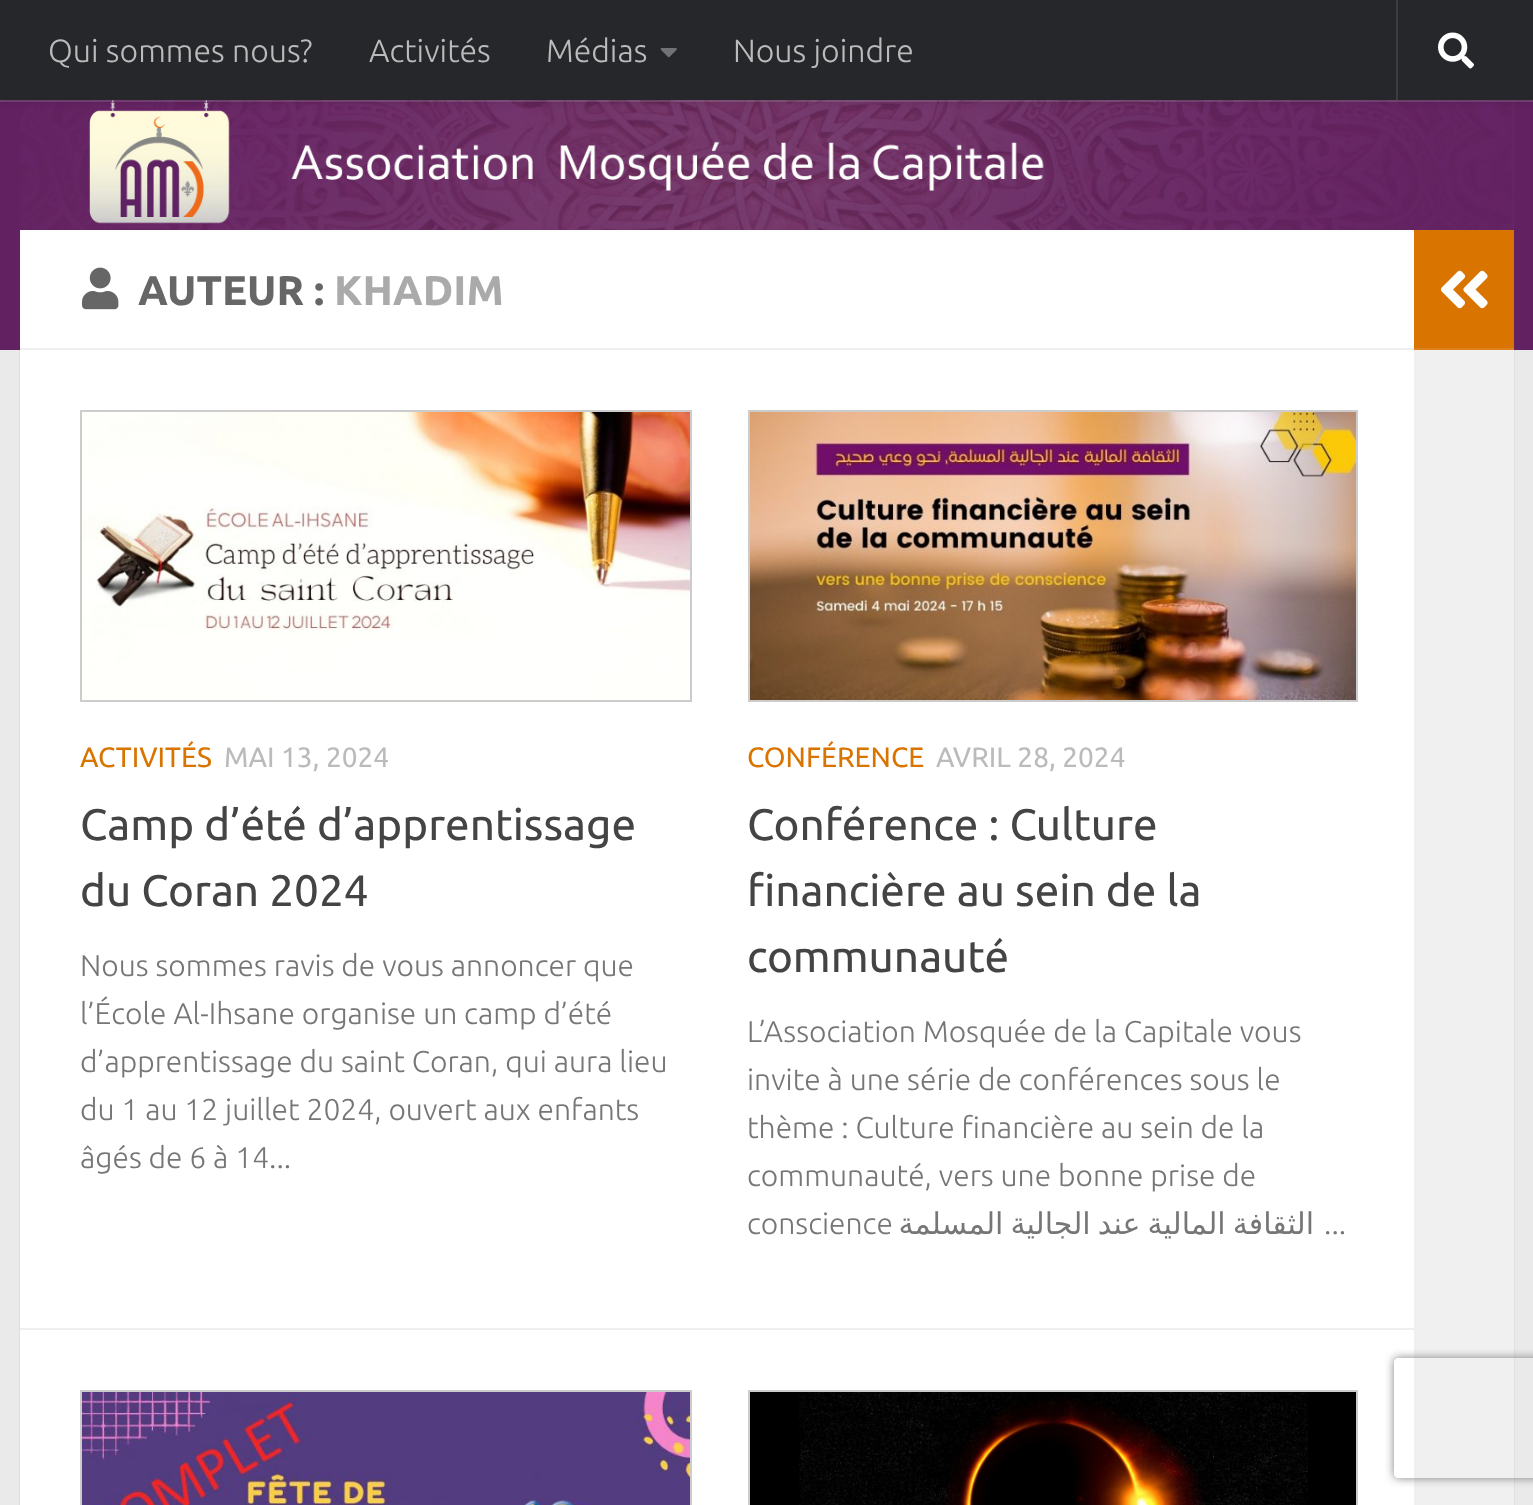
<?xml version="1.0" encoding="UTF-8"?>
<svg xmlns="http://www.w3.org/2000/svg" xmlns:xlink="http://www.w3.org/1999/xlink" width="1533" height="1505">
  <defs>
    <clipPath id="clip1"><path d="M 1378 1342 h 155 v 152 h -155 z m 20 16 h 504 c 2 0 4 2 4 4 v 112 c 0 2 -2 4 -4 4 h -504 c -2 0 -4 -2 -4 -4 v -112 c 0 -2 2 -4 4 -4 z" clip-rule="evenodd" /></clipPath>
  </defs>
  <rect width="100%" height="100%" fill="#eaeaea" />
  <rect x="20" y="232" width="1494" height="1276" fill="#000000" fill-opacity="0.1" filter="blur(1px)" />
  <rect y="100" width="1533" height="250" fill="#622160" />
  <image x="20" y="100" width="1494" height="130" xlink:href="image3.png" />
  <rect y="100" width="1533" height="2" fill="#ffffff" fill-opacity="0.15" />
  <rect width="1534" height="100" fill="#000000" fill-opacity="0.2" filter="blur(5px)" />
  <rect width="1533" height="100" fill="#26272b" />
  <image x="660" y="48" width="17" height="10" xlink:href="image1.png" />
  <rect x="1396" width="2" height="100" fill="#3c3d40" />
  <image x="1438" y="32" width="36" height="37" xlink:href="image2.png" />
  <rect x="20" y="230" width="1394" height="1275" fill="#ffffff" />
  <rect x="20" y="348" width="1394" height="2" fill="#eeeeee" />
  <image x="82" y="267" width="37" height="43" xlink:href="image4.png" />
  <rect x="20" y="1328" width="1394" height="2" fill="#eeeeee" />
  <rect x="81" y="411" width="610" height="290" fill="none" stroke="#cccccc" stroke-width="2" />
  <image x="82" y="412" width="608" height="288" xlink:href="image5.png" />
  <rect x="749" y="411" width="608" height="290" fill="none" stroke="#cccccc" stroke-width="2" />
  <image x="750" y="412" width="606" height="288" xlink:href="image6.png" />
  <rect x="81" y="1391" width="610" height="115" fill="none" stroke="#cccccc" stroke-width="2" />
  <image x="82" y="1392" width="608" height="113" xlink:href="image7.png" />
  <rect x="749" y="1391" width="608" height="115" fill="none" stroke="#cccccc" stroke-width="2" />
  <image x="750" y="1392" width="606" height="113" xlink:href="image8.png" />
  <rect x="1414" y="230" width="100" height="118" fill="#d97400" />
  <rect x="1414" y="348" width="100" height="2" fill="#dd821a" />
  <image x="1440" y="270" width="48" height="39" xlink:href="image9.png" />
  <rect x="1414" y="350" width="100" height="1155" fill="#f0f0f0" />
  <g clip-path="url(#clip1)">
    <rect x="1394" y="1358" width="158" height="120" rx="4" fill="#808080" filter="blur(5px)" />
  </g>
  <text x="48" y="62" style="font-family: Ubuntu; font-size: 32px; font-weight: 300; fill: #bbbbbb">Qui sommes nous?</text>
  <text x="369" y="62" style="font-family: Ubuntu; font-size: 32px; font-weight: 300; fill: #bbbbbb">Activités</text>
  <text x="546" y="62" style="font-family: Ubuntu; font-size: 32px; font-weight: 300; fill: #bbbbbb">Médias</text>
  <text x="733" y="62" style="font-family: Ubuntu; font-size: 32px; font-weight: 300; fill: #bbbbbb">Nous joindre</text>
  <text x="138" y="305" style="font-family: Ubuntu; font-size: 41.5px; font-weight: bold; fill: #666666">AUTEUR :</text>
  <text x="334" y="305" style="font-family: Ubuntu; font-size: 41.5px; font-weight: bold; fill: #aaaaaa">KHADIM</text>
  <text x="80" y="767" style="font-family: Ubuntu; font-size: 28px; fill: #d97400">ACTIVITÉS</text>
  <text x="224" y="767" style="font-family: Ubuntu; font-size: 28px; fill: #bbbbbb">MAI 13, 2024</text>
  <text x="80" y="840" style="font-family: Ubuntu; font-size: 44px; fill: #444444">Camp d’été d’apprentissage</text>
  <text x="80" y="906" style="font-family: Ubuntu; font-size: 44px; fill: #444444">du Coran 2024</text>
  <text x="80" y="976" style="font-family: Ubuntu; font-size: 30px; font-weight: 300; fill: #767676">Nous sommes ravis de vous annoncer que</text>
  <text x="80" y="1024" style="font-family: Ubuntu; font-size: 30px; font-weight: 300; fill: #767676">l’École Al-Ihsane organise un camp d’été</text>
  <text x="80" y="1072" style="font-family: Ubuntu; font-size: 30px; font-weight: 300; fill: #767676">d’apprentissage du saint Coran, qui aura lieu</text>
  <text x="80" y="1120" style="font-family: Ubuntu; font-size: 30px; font-weight: 300; fill: #767676">du 1 au 12 juillet 2024, ouvert aux enfants</text>
  <text x="80" y="1168" style="font-family: Ubuntu; font-size: 30px; font-weight: 300; fill: #767676">âgés de 6 à 14...</text>
  <text x="747" y="767" style="font-family: Ubuntu; font-size: 28px; fill: #d97400">CONFÉRENCE</text>
  <text x="936" y="767" style="font-family: Ubuntu; font-size: 28px; fill: #bbbbbb">AVRIL 28, 2024</text>
  <text x="747" y="840" style="font-family: Ubuntu; font-size: 44px; fill: #444444">Conférence : Culture</text>
  <text x="747" y="906" style="font-family: Ubuntu; font-size: 44px; fill: #444444">financière au sein de la</text>
  <text x="747" y="972" style="font-family: Ubuntu; font-size: 44px; fill: #444444">communauté</text>
  <text x="747" y="1042" style="font-family: Ubuntu; font-size: 30px; font-weight: 300; fill: #767676">L’Association Mosquée de la Capitale vous</text>
  <text x="747" y="1090" style="font-family: Ubuntu; font-size: 30px; font-weight: 300; fill: #767676">invite à une série de conférences sous le</text>
  <text x="747" y="1138" style="font-family: Ubuntu; font-size: 30px; font-weight: 300; fill: #767676">thème : Culture financière au sein de la</text>
  <text x="747" y="1186" style="font-family: Ubuntu; font-size: 30px; font-weight: 300; fill: #767676">communauté, vers une bonne prise de</text>
  <text x="747" y="1234" style="font-family: Ubuntu; font-size: 30px; font-weight: 300; fill: #767676">conscience</text>
  <text x="1314" y="1234" word-spacing="-2.5" style="font-family: DejaVu Sans; font-size: 30px; direction: rtl; fill: #767676">الثقافة المالية عند الجالية المسلمة</text>
  <text x="1324" y="1234" style="font-family: Ubuntu; font-size: 30px; font-weight: 300; fill: #767676">...</text>
</svg>
